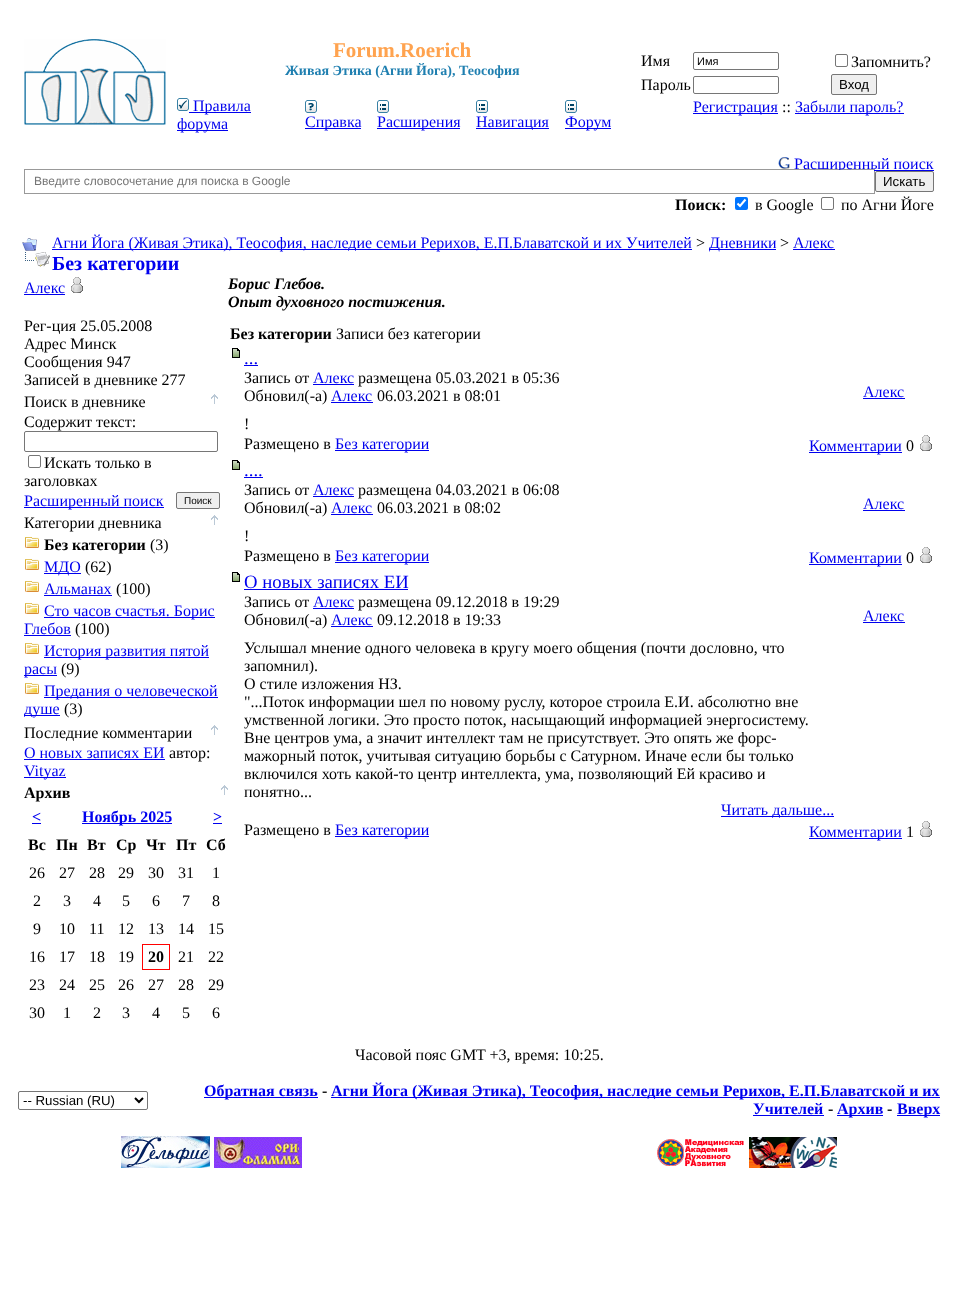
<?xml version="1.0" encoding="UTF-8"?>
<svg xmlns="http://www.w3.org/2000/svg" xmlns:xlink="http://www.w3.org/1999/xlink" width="958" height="1299">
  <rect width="100%" height="100%" fill="#ffffff" />
  <image x="24" y="39" width="142" height="86" xlink:href="image1.png" />
  <image x="177" y="98" width="12" height="13" xlink:href="image2.png" />
  <rect x="189" y="112" width="62" height="1" fill="#0000ee" />
  <rect x="177" y="130" width="51" height="1" fill="#0000ee" />
  <image x="305" y="100" width="12" height="13" xlink:href="image3.png" />
  <rect x="305" y="128" width="56" height="1" fill="#0000ee" />
  <image x="377" y="100" width="12" height="13" xlink:href="image4.png" />
  <rect x="377" y="128" width="83" height="1" fill="#0000ee" />
  <image x="476" y="100" width="12" height="13" xlink:href="image4.png" />
  <rect x="476" y="128" width="73" height="1" fill="#0000ee" />
  <image x="565" y="100" width="12" height="13" xlink:href="image4.png" />
  <rect x="565" y="128" width="46" height="1" fill="#0000ee" />
  <rect x="693.5" y="52.5" width="85" height="17" rx="1.5" fill="none" stroke="#767676" />
  <rect x="835.5" y="54.5" width="12" height="12" rx="1.5" fill="none" stroke="#767676" />
  <rect x="693.5" y="76.5" width="85" height="17" rx="1.5" fill="none" stroke="#767676" />
  <rect x="831.5" y="74.5" width="45" height="20" rx="1.5" fill="#efefef" stroke="#767676" />
  <rect x="693" y="113" width="85" height="1" fill="#0000ee" />
  <rect x="795" y="113" width="109" height="1" fill="#0000ee" />
  <image x="778" y="157" width="12" height="12" xlink:href="image5.png" />
  <rect x="24.5" y="169.5" width="850" height="24" fill="none" stroke="#999999" />
  <rect x="874" y="170" width="60" height="1" fill="#0000ee" />
  <rect x="735" y="197" width="13" height="13" rx="2" fill="#0075ff" />
  <path d="M 737.5 203.5 l 2.5 2.5 l 5.5 -6.5" fill="none" stroke="#ffffff" stroke-width="2.1" />
  <rect x="821.5" y="197.5" width="12" height="12" rx="1.5" fill="none" stroke="#767676" />
  <image x="22" y="238" width="15" height="13" xlink:href="image6.png" />
  <rect x="52" y="249" width="640" height="1" fill="#0000ee" />
  <rect x="709" y="249" width="67" height="1" fill="#0000ee" />
  <rect x="793" y="249" width="42" height="1" fill="#0000ee" />
  <image x="25" y="252" width="25" height="15" xlink:href="image7.png" />
  <rect x="24" y="294" width="41" height="1" fill="#0000ee" />
  <image x="71" y="277" width="12" height="16" xlink:href="image8.png" />
  <image x="211" y="394" width="7" height="10" xlink:href="image9.png" />
  <rect x="24.5" y="431.5" width="193" height="20" rx="1.5" fill="none" stroke="#767676" />
  <rect x="28.5" y="455.5" width="12" height="12" rx="1.5" fill="none" stroke="#767676" />
  <rect x="24" y="507" width="140" height="1" fill="#0000ee" />
  <rect x="176.5" y="492.5" width="43" height="16" rx="1.5" fill="#efefef" stroke="#767676" />
  <image x="211" y="515" width="7" height="10" xlink:href="image9.png" />
  <image x="25" y="537" width="14" height="11" xlink:href="image10.png" />
  <image x="25" y="559" width="14" height="11" xlink:href="image10.png" />
  <rect x="44" y="573" width="37" height="1" fill="#0000ee" />
  <image x="25" y="581" width="14" height="11" xlink:href="image10.png" />
  <rect x="44" y="595" width="68" height="1" fill="#0000ee" />
  <image x="25" y="603" width="14" height="11" xlink:href="image10.png" />
  <rect x="44" y="617" width="171" height="1" fill="#0000ee" />
  <rect x="24" y="635" width="47" height="1" fill="#0000ee" />
  <image x="25" y="643" width="14" height="11" xlink:href="image10.png" />
  <rect x="44" y="657" width="165" height="1" fill="#0000ee" />
  <rect x="24" y="675" width="33" height="1" fill="#0000ee" />
  <image x="25" y="683" width="14" height="11" xlink:href="image10.png" />
  <rect x="44" y="697" width="174" height="1" fill="#0000ee" />
  <rect x="24" y="715" width="36" height="1" fill="#0000ee" />
  <image x="211" y="725" width="7" height="10" xlink:href="image9.png" />
  <rect x="24" y="759" width="141" height="1" fill="#0000ee" />
  <rect x="24" y="777" width="42" height="1" fill="#0000ee" />
  <image x="221" y="785" width="7" height="10" xlink:href="image9.png" />
  <rect x="32" y="823" width="9" height="1" fill="#0000ee" />
  <rect x="82" y="823" width="90" height="1" fill="#0000ee" />
  <rect x="213" y="823" width="9" height="1" fill="#0000ee" />
  <rect x="142.5" y="944.5" width="27" height="25" fill="none" stroke="#ff0000" />
  <image x="232" y="348" width="8" height="10" xlink:href="image11.png" />
  <rect x="244" y="365" width="14" height="1" fill="#0000ee" />
  <rect x="313" y="384" width="41" height="1" fill="#0000ee" />
  <rect x="331" y="402" width="42" height="1" fill="#0000ee" />
  <rect x="863" y="398" width="42" height="1" fill="#0000ee" />
  <rect x="335" y="450" width="94" height="1" fill="#0000ee" />
  <rect x="809" y="452" width="93" height="1" fill="#0000ee" />
  <image x="920" y="435" width="12" height="16" xlink:href="image8.png" />
  <image x="232" y="460" width="8" height="10" xlink:href="image11.png" />
  <rect x="244" y="477" width="19" height="1" fill="#0000ee" />
  <rect x="313" y="496" width="41" height="1" fill="#0000ee" />
  <rect x="331" y="514" width="42" height="1" fill="#0000ee" />
  <rect x="863" y="510" width="42" height="1" fill="#0000ee" />
  <rect x="335" y="562" width="94" height="1" fill="#0000ee" />
  <rect x="809" y="564" width="93" height="1" fill="#0000ee" />
  <image x="920" y="547" width="12" height="16" xlink:href="image8.png" />
  <image x="232" y="572" width="8" height="10" xlink:href="image11.png" />
  <rect x="244" y="589" width="164" height="1" fill="#0000ee" />
  <rect x="313" y="608" width="41" height="1" fill="#0000ee" />
  <rect x="331" y="626" width="42" height="1" fill="#0000ee" />
  <rect x="721" y="816" width="113" height="1" fill="#0000ee" />
  <rect x="863" y="622" width="42" height="1" fill="#0000ee" />
  <rect x="335" y="836" width="94" height="1" fill="#0000ee" />
  <rect x="809" y="838" width="93" height="1" fill="#0000ee" />
  <image x="920" y="821" width="12" height="16" xlink:href="image8.png" />
  <rect x="18.5" y="1091.5" width="129" height="18" rx="1.5" fill="none" stroke="#767676" />
  <path d="M 135 1098 l 4 4 l 4 -4" fill="none" stroke="#000000" stroke-width="2" />
  <rect x="204" y="1097" width="114" height="1" fill="#0000ee" />
  <rect x="331" y="1097" width="609" height="1" fill="#0000ee" />
  <rect x="753" y="1115" width="71" height="1" fill="#0000ee" />
  <rect x="837" y="1115" width="46" height="1" fill="#0000ee" />
  <rect x="897" y="1115" width="43" height="1" fill="#0000ee" />
  <image x="121" y="1136" width="89" height="32" xlink:href="image12.png" />
  <image x="214" y="1137" width="88" height="31" xlink:href="image13.png" />
  <image x="657" y="1139" width="87" height="28" xlink:href="image14.png" />
  <image x="749" y="1137" width="88" height="31" xlink:href="image15.png" />
  <text x="333" y="57" style="font-family: Liberation Serif; font-size: 21px; font-weight: bold; fill: #ffa34f">Forum.Roerich</text>
  <text x="285" y="75" style="font-family: Liberation Serif; font-size: 14px; font-weight: bold; fill: #1f7fb0">Живая Этика (Агни Йога), Теософия</text>
  <text x="193" y="111" style="font-family: Liberation Serif; font-size: 16px; fill: #0000ee">Правила</text>
  <text x="177" y="129" style="font-family: Liberation Serif; font-size: 16px; fill: #0000ee">форума</text>
  <text x="305" y="127" style="font-family: Liberation Serif; font-size: 16px; fill: #0000ee">Справка</text>
  <text x="377" y="127" style="font-family: Liberation Serif; font-size: 16px; fill: #0000ee">Расширения</text>
  <text x="476" y="127" style="font-family: Liberation Serif; font-size: 16px; fill: #0000ee">Навигация</text>
  <text x="565" y="127" style="font-family: Liberation Serif; font-size: 16px; fill: #0000ee">Форум</text>
  <text x="641" y="66" style="font-family: Liberation Serif; font-size: 16px; fill: #000000">Имя</text>
  <text x="697" y="65" style="font-family: Liberation Sans; font-size: 11px; fill: #000000">Имя</text>
  <text x="851" y="67" style="font-family: Liberation Serif; font-size: 16px; fill: #000000">Запомнить?</text>
  <text x="641" y="90" style="font-family: Liberation Serif; font-size: 16px; fill: #000000">Пароль</text>
  <text x="839" y="89" style="font-family: Liberation Sans; font-size: 13.25px; fill: #000000">Вход</text>
  <text x="693" y="112" style="font-family: Liberation Serif; font-size: 16px; fill: #0000ee">Регистрация</text>
  <text x="782" y="112" style="font-family: Liberation Serif; font-size: 16px; fill: #000000">::</text>
  <text x="795" y="112" style="font-family: Liberation Serif; font-size: 16px; fill: #0000ee">Забыли пароль?</text>
  <text x="794" y="169" style="font-family: Liberation Serif; font-size: 16px; fill: #0000ee">Расширенный поиск</text>
  <rect x="838" y="170" width="5" height="3" fill="#ffffff" />
  <text x="34" y="185" style="font-family: Liberation Sans; font-size: 12px; fill: #757575">Введите словосочетание для поиска в Google</text>
  <rect x="875.5" y="171.5" width="58" height="20" rx="1.5" fill="#efefef" stroke="#767676" />
  <text x="883" y="186" style="font-family: Liberation Sans; font-size: 13.25px; fill: #000000">Искать</text>
  <text x="675" y="210" style="font-family: Liberation Serif; font-size: 16px; font-weight: bold; fill: #000000">Поиск:</text>
  <text x="755" y="210" style="font-family: Liberation Serif; font-size: 16px; fill: #000000">в Google</text>
  <text x="841" y="210" style="font-family: Liberation Serif; font-size: 16px; fill: #000000">по Агни Йоге</text>
  <text x="52" y="248" style="font-family: Liberation Serif; font-size: 16px; fill: #0000ee">Агни Йога (Живая Этика), Теософия, наследие семьи Рерихов, Е.П.Блаватской и их Учителей</text>
  <text x="696" y="248" style="font-family: Liberation Serif; font-size: 16px; fill: #000000">&gt;</text>
  <text x="709" y="248" style="font-family: Liberation Serif; font-size: 16px; fill: #0000ee">Дневники</text>
  <text x="780" y="248" style="font-family: Liberation Serif; font-size: 16px; fill: #000000">&gt;</text>
  <text x="793" y="248" style="font-family: Liberation Serif; font-size: 16px; fill: #0000ee">Алекс</text>
  <text x="52" y="270" style="font-family: Liberation Serif; font-size: 20px; font-weight: bold; fill: #0000ee">Без категории</text>
  <text x="24" y="293" style="font-family: Liberation Serif; font-size: 16px; fill: #0000ee">Алекс</text>
  <text x="24" y="331" style="font-family: Liberation Serif; font-size: 16px; fill: #000000">Рег-ция 25.05.2008</text>
  <text x="24" y="349" style="font-family: Liberation Serif; font-size: 16px; fill: #000000">Адрес Минск</text>
  <text x="24" y="367" style="font-family: Liberation Serif; font-size: 16px; fill: #000000">Сообщения 947</text>
  <text x="24" y="385" style="font-family: Liberation Serif; font-size: 16px; fill: #000000">Записей в дневнике 277</text>
  <text x="24" y="407" style="font-family: Liberation Serif; font-size: 16px; fill: #000000">Поиск в дневнике</text>
  <text x="24" y="427" style="font-family: Liberation Serif; font-size: 16px; fill: #000000">Содержит текст:</text>
  <text x="44" y="468" style="font-family: Liberation Serif; font-size: 16px; fill: #000000">Искать только в</text>
  <text x="24" y="486" style="font-family: Liberation Serif; font-size: 16px; fill: #000000">заголовках</text>
  <text x="24" y="506" style="font-family: Liberation Serif; font-size: 16px; fill: #0000ee">Расширенный поиск</text>
  <text x="184" y="504" style="font-family: Liberation Sans; font-size: 10px; fill: #000000">Поиск</text>
  <text x="24" y="528" style="font-family: Liberation Serif; font-size: 16px; fill: #000000">Категории дневника</text>
  <text x="44" y="550" style="font-family: Liberation Serif; font-size: 16px; font-weight: bold; fill: #000000">Без категории</text>
  <text x="150" y="550" style="font-family: Liberation Serif; font-size: 16px; fill: #000000">(3)</text>
  <text x="44" y="572" style="font-family: Liberation Serif; font-size: 16px; fill: #0000ee">МДО</text>
  <text x="85" y="572" style="font-family: Liberation Serif; font-size: 16px; fill: #000000">(62)</text>
  <text x="44" y="594" style="font-family: Liberation Serif; font-size: 16px; fill: #0000ee">Альманах</text>
  <text x="116" y="594" style="font-family: Liberation Serif; font-size: 16px; fill: #000000">(100)</text>
  <text x="44" y="616" style="font-family: Liberation Serif; font-size: 16px; fill: #0000ee">Сто часов счастья. Борис</text>
  <text x="24" y="634" style="font-family: Liberation Serif; font-size: 16px; fill: #0000ee">Глебов</text>
  <text x="75" y="634" style="font-family: Liberation Serif; font-size: 16px; fill: #000000">(100)</text>
  <text x="44" y="656" style="font-family: Liberation Serif; font-size: 16px; fill: #0000ee">История развития пятой</text>
  <text x="24" y="674" style="font-family: Liberation Serif; font-size: 16px; fill: #0000ee">расы</text>
  <text x="61" y="674" style="font-family: Liberation Serif; font-size: 16px; fill: #000000">(9)</text>
  <text x="44" y="696" style="font-family: Liberation Serif; font-size: 16px; fill: #0000ee">Предания о человеческой</text>
  <text x="24" y="714" style="font-family: Liberation Serif; font-size: 16px; fill: #0000ee">душе</text>
  <text x="64" y="714" style="font-family: Liberation Serif; font-size: 16px; fill: #000000">(3)</text>
  <text x="24" y="738" style="font-family: Liberation Serif; font-size: 16px; fill: #000000">Последние комментарии</text>
  <text x="24" y="758" style="font-family: Liberation Serif; font-size: 16px; fill: #0000ee">О новых записях ЕИ</text>
  <text x="169" y="758" style="font-family: Liberation Serif; font-size: 16px; fill: #000000">автор:</text>
  <text x="24" y="776" style="font-family: Liberation Serif; font-size: 16px; fill: #0000ee">Vityaz</text>
  <text x="24" y="798" style="font-family: Liberation Serif; font-size: 16px; font-weight: bold; fill: #000000">Архив</text>
  <text x="32" y="822" style="font-family: Liberation Serif; font-size: 16px; font-weight: bold; fill: #0000ee">&lt;</text>
  <text x="82" y="822" style="font-family: Liberation Serif; font-size: 16px; font-weight: bold; fill: #0000ee">Ноябрь 2025</text>
  <text x="213" y="822" style="font-family: Liberation Serif; font-size: 16px; font-weight: bold; fill: #0000ee">&gt;</text>
  <text x="28" y="850" style="font-family: Liberation Serif; font-size: 16px; font-weight: bold; fill: #000000">Вс</text>
  <text x="56" y="850" style="font-family: Liberation Serif; font-size: 16px; font-weight: bold; fill: #000000">Пн</text>
  <text x="87" y="850" style="font-family: Liberation Serif; font-size: 16px; font-weight: bold; fill: #000000">Вт</text>
  <text x="116" y="850" style="font-family: Liberation Serif; font-size: 16px; font-weight: bold; fill: #000000">Ср</text>
  <text x="146" y="850" style="font-family: Liberation Serif; font-size: 16px; font-weight: bold; fill: #000000">Чт</text>
  <text x="176" y="850" style="font-family: Liberation Serif; font-size: 16px; font-weight: bold; fill: #000000">Пт</text>
  <text x="206" y="850" style="font-family: Liberation Serif; font-size: 16px; font-weight: bold; fill: #000000">Сб</text>
  <text x="29" y="878" style="font-family: Liberation Serif; font-size: 16px; fill: #000000">26</text>
  <text x="59" y="878" style="font-family: Liberation Serif; font-size: 16px; fill: #000000">27</text>
  <text x="89" y="878" style="font-family: Liberation Serif; font-size: 16px; fill: #000000">28</text>
  <text x="118" y="878" style="font-family: Liberation Serif; font-size: 16px; fill: #000000">29</text>
  <text x="148" y="878" style="font-family: Liberation Serif; font-size: 16px; fill: #000000">30</text>
  <text x="178" y="878" style="font-family: Liberation Serif; font-size: 16px; fill: #000000">31</text>
  <text x="212" y="878" style="font-family: Liberation Serif; font-size: 16px; fill: #000000">1</text>
  <text x="33" y="906" style="font-family: Liberation Serif; font-size: 16px; fill: #000000">2</text>
  <text x="63" y="906" style="font-family: Liberation Serif; font-size: 16px; fill: #000000">3</text>
  <text x="93" y="906" style="font-family: Liberation Serif; font-size: 16px; fill: #000000">4</text>
  <text x="122" y="906" style="font-family: Liberation Serif; font-size: 16px; fill: #000000">5</text>
  <text x="152" y="906" style="font-family: Liberation Serif; font-size: 16px; fill: #000000">6</text>
  <text x="182" y="906" style="font-family: Liberation Serif; font-size: 16px; fill: #000000">7</text>
  <text x="212" y="906" style="font-family: Liberation Serif; font-size: 16px; fill: #000000">8</text>
  <text x="33" y="934" style="font-family: Liberation Serif; font-size: 16px; fill: #000000">9</text>
  <text x="59" y="934" style="font-family: Liberation Serif; font-size: 16px; fill: #000000">10</text>
  <text x="89" y="934" style="font-family: Liberation Serif; font-size: 16px; fill: #000000">11</text>
  <text x="118" y="934" style="font-family: Liberation Serif; font-size: 16px; fill: #000000">12</text>
  <text x="148" y="934" style="font-family: Liberation Serif; font-size: 16px; fill: #000000">13</text>
  <text x="178" y="934" style="font-family: Liberation Serif; font-size: 16px; fill: #000000">14</text>
  <text x="208" y="934" style="font-family: Liberation Serif; font-size: 16px; fill: #000000">15</text>
  <text x="29" y="962" style="font-family: Liberation Serif; font-size: 16px; fill: #000000">16</text>
  <text x="59" y="962" style="font-family: Liberation Serif; font-size: 16px; fill: #000000">17</text>
  <text x="89" y="962" style="font-family: Liberation Serif; font-size: 16px; fill: #000000">18</text>
  <text x="118" y="962" style="font-family: Liberation Serif; font-size: 16px; fill: #000000">19</text>
  <text x="148" y="962" style="font-family: Liberation Serif; font-size: 16px; font-weight: bold; fill: #000000">20</text>
  <text x="178" y="962" style="font-family: Liberation Serif; font-size: 16px; fill: #000000">21</text>
  <text x="208" y="962" style="font-family: Liberation Serif; font-size: 16px; fill: #000000">22</text>
  <text x="29" y="990" style="font-family: Liberation Serif; font-size: 16px; fill: #000000">23</text>
  <text x="59" y="990" style="font-family: Liberation Serif; font-size: 16px; fill: #000000">24</text>
  <text x="89" y="990" style="font-family: Liberation Serif; font-size: 16px; fill: #000000">25</text>
  <text x="118" y="990" style="font-family: Liberation Serif; font-size: 16px; fill: #000000">26</text>
  <text x="148" y="990" style="font-family: Liberation Serif; font-size: 16px; fill: #000000">27</text>
  <text x="178" y="990" style="font-family: Liberation Serif; font-size: 16px; fill: #000000">28</text>
  <text x="208" y="990" style="font-family: Liberation Serif; font-size: 16px; fill: #000000">29</text>
  <text x="29" y="1018" style="font-family: Liberation Serif; font-size: 16px; fill: #000000">30</text>
  <text x="63" y="1018" style="font-family: Liberation Serif; font-size: 16px; fill: #000000">1</text>
  <text x="93" y="1018" style="font-family: Liberation Serif; font-size: 16px; fill: #000000">2</text>
  <text x="122" y="1018" style="font-family: Liberation Serif; font-size: 16px; fill: #000000">3</text>
  <text x="152" y="1018" style="font-family: Liberation Serif; font-size: 16px; fill: #000000">4</text>
  <text x="182" y="1018" style="font-family: Liberation Serif; font-size: 16px; fill: #000000">5</text>
  <text x="212" y="1018" style="font-family: Liberation Serif; font-size: 16px; fill: #000000">6</text>
  <text x="228" y="289" style="font-family: Liberation Serif; font-size: 16px; font-weight: bold; font-style: italic; fill: #000000">Борис Глебов.</text>
  <text x="228" y="307" style="font-family: Liberation Serif; font-size: 16px; font-weight: bold; font-style: italic; fill: #000000">Опыт духовного постижения.</text>
  <text x="230" y="339" style="font-family: Liberation Serif; font-size: 16px; font-weight: bold; fill: #000000">Без категории</text>
  <text x="336" y="339" style="font-family: Liberation Serif; font-size: 16px; fill: #000000">Записи без категории</text>
  <text x="244" y="364" style="font-family: Liberation Serif; font-size: 18.75px; fill: #0000ee">...</text>
  <text x="244" y="383" style="font-family: Liberation Serif; font-size: 16px; fill: #000000">Запись от</text>
  <text x="313" y="383" style="font-family: Liberation Serif; font-size: 16px; fill: #0000ee">Алекс</text>
  <text x="358" y="383" style="font-family: Liberation Serif; font-size: 16px; fill: #000000">размещена 05.03.2021 в 05:36</text>
  <text x="244" y="401" style="font-family: Liberation Serif; font-size: 16px; fill: #000000">Обновил(-а)</text>
  <text x="331" y="401" style="font-family: Liberation Serif; font-size: 16px; fill: #0000ee">Алекс</text>
  <text x="377" y="401" style="font-family: Liberation Serif; font-size: 16px; fill: #000000">06.03.2021 в 08:01</text>
  <text x="244" y="429" style="font-family: Liberation Serif; font-size: 16px; fill: #000000">!</text>
  <text x="863" y="397" style="font-family: Liberation Serif; font-size: 16px; fill: #0000ee">Алекс</text>
  <text x="244" y="449" style="font-family: Liberation Serif; font-size: 16px; fill: #000000">Размещено в</text>
  <text x="335" y="449" style="font-family: Liberation Serif; font-size: 16px; fill: #0000ee">Без категории</text>
  <text x="809" y="451" style="font-family: Liberation Serif; font-size: 16px; fill: #0000ee">Комментарии</text>
  <text x="906" y="451" style="font-family: Liberation Serif; font-size: 16px; fill: #000000">0</text>
  <text x="244" y="476" style="font-family: Liberation Serif; font-size: 18.75px; fill: #0000ee">....</text>
  <text x="244" y="495" style="font-family: Liberation Serif; font-size: 16px; fill: #000000">Запись от</text>
  <text x="313" y="495" style="font-family: Liberation Serif; font-size: 16px; fill: #0000ee">Алекс</text>
  <text x="358" y="495" style="font-family: Liberation Serif; font-size: 16px; fill: #000000">размещена 04.03.2021 в 06:08</text>
  <text x="244" y="513" style="font-family: Liberation Serif; font-size: 16px; fill: #000000">Обновил(-а)</text>
  <text x="331" y="513" style="font-family: Liberation Serif; font-size: 16px; fill: #0000ee">Алекс</text>
  <text x="377" y="513" style="font-family: Liberation Serif; font-size: 16px; fill: #000000">06.03.2021 в 08:02</text>
  <text x="244" y="541" style="font-family: Liberation Serif; font-size: 16px; fill: #000000">!</text>
  <text x="863" y="509" style="font-family: Liberation Serif; font-size: 16px; fill: #0000ee">Алекс</text>
  <text x="244" y="561" style="font-family: Liberation Serif; font-size: 16px; fill: #000000">Размещено в</text>
  <text x="335" y="561" style="font-family: Liberation Serif; font-size: 16px; fill: #0000ee">Без категории</text>
  <text x="809" y="563" style="font-family: Liberation Serif; font-size: 16px; fill: #0000ee">Комментарии</text>
  <text x="906" y="563" style="font-family: Liberation Serif; font-size: 16px; fill: #000000">0</text>
  <text x="244" y="588" style="font-family: Liberation Serif; font-size: 18.75px; fill: #0000ee">О новых записях ЕИ</text>
  <text x="244" y="607" style="font-family: Liberation Serif; font-size: 16px; fill: #000000">Запись от</text>
  <text x="313" y="607" style="font-family: Liberation Serif; font-size: 16px; fill: #0000ee">Алекс</text>
  <text x="358" y="607" style="font-family: Liberation Serif; font-size: 16px; fill: #000000">размещена 09.12.2018 в 19:29</text>
  <text x="244" y="625" style="font-family: Liberation Serif; font-size: 16px; fill: #000000">Обновил(-а)</text>
  <text x="331" y="625" style="font-family: Liberation Serif; font-size: 16px; fill: #0000ee">Алекс</text>
  <text x="377" y="625" style="font-family: Liberation Serif; font-size: 16px; fill: #000000">09.12.2018 в 19:33</text>
  <text x="244" y="653" style="font-family: Liberation Serif; font-size: 16px; fill: #000000">Услышал мнение одного человека в кругу моего общения (почти дословно, что</text>
  <text x="244" y="671" style="font-family: Liberation Serif; font-size: 16px; fill: #000000">запомнил).</text>
  <text x="244" y="689" style="font-family: Liberation Serif; font-size: 16px; fill: #000000">О стиле изложения НЗ.</text>
  <text x="244" y="707" style="font-family: Liberation Serif; font-size: 16px; fill: #000000">"...Поток информации шел по новому руслу, которое строила Е.И. абсолютно вне</text>
  <text x="244" y="725" style="font-family: Liberation Serif; font-size: 16px; fill: #000000">умственной логики. Это просто поток, насыщающий информацией энергосистему.</text>
  <text x="244" y="743" style="font-family: Liberation Serif; font-size: 16px; fill: #000000">Вне центров ума, а значит интеллект там не присутствует. Это опять же форс-</text>
  <text x="244" y="761" style="font-family: Liberation Serif; font-size: 16px; fill: #000000">мажорный поток, учитывая ситуацию борьбы с Сатурном. Иначе если бы только</text>
  <text x="244" y="779" style="font-family: Liberation Serif; font-size: 16px; fill: #000000">включился хоть какой-то центр интеллекта, ума, позволяющий Ей красиво и</text>
  <text x="244" y="797" style="font-family: Liberation Serif; font-size: 16px; fill: #000000">понятно...</text>
  <text x="721" y="815" style="font-family: Liberation Serif; font-size: 16px; fill: #0000ee">Читать дальше...</text>
  <text x="863" y="621" style="font-family: Liberation Serif; font-size: 16px; fill: #0000ee">Алекс</text>
  <text x="244" y="835" style="font-family: Liberation Serif; font-size: 16px; fill: #000000">Размещено в</text>
  <text x="335" y="835" style="font-family: Liberation Serif; font-size: 16px; fill: #0000ee">Без категории</text>
  <text x="809" y="837" style="font-family: Liberation Serif; font-size: 16px; fill: #0000ee">Комментарии</text>
  <text x="906" y="837" style="font-family: Liberation Serif; font-size: 16px; fill: #000000">1</text>
  <text x="355" y="1060" style="font-family: Liberation Serif; font-size: 16px; fill: #000000">Часовой пояс GMT +3, время: 10:25.</text>
  <text x="23" y="1105" style="font-family: Liberation Sans; font-size: 13.25px; fill: #000000">-- Russian (RU)</text>
  <text x="204" y="1096" style="font-family: Liberation Serif; font-size: 16px; font-weight: bold; fill: #0000ee">Обратная связь</text>
  <text x="322" y="1096" style="font-family: Liberation Serif; font-size: 16px; font-weight: bold; fill: #000000">-</text>
  <text x="331" y="1096" style="font-family: Liberation Serif; font-size: 16px; font-weight: bold; fill: #0000ee">Агни Йога (Живая Этика), Теософия, наследие семьи Рерихов, Е.П.Блаватской и их</text>
  <text x="753" y="1114" style="font-family: Liberation Serif; font-size: 16px; font-weight: bold; fill: #0000ee">Учителей</text>
  <text x="828" y="1114" style="font-family: Liberation Serif; font-size: 16px; font-weight: bold; fill: #000000">-</text>
  <text x="837" y="1114" style="font-family: Liberation Serif; font-size: 16px; font-weight: bold; fill: #0000ee">Архив</text>
  <text x="887" y="1114" style="font-family: Liberation Serif; font-size: 16px; font-weight: bold; fill: #000000">-</text>
  <text x="897" y="1114" style="font-family: Liberation Serif; font-size: 16px; font-weight: bold; fill: #0000ee">Вверх</text>
</svg>
